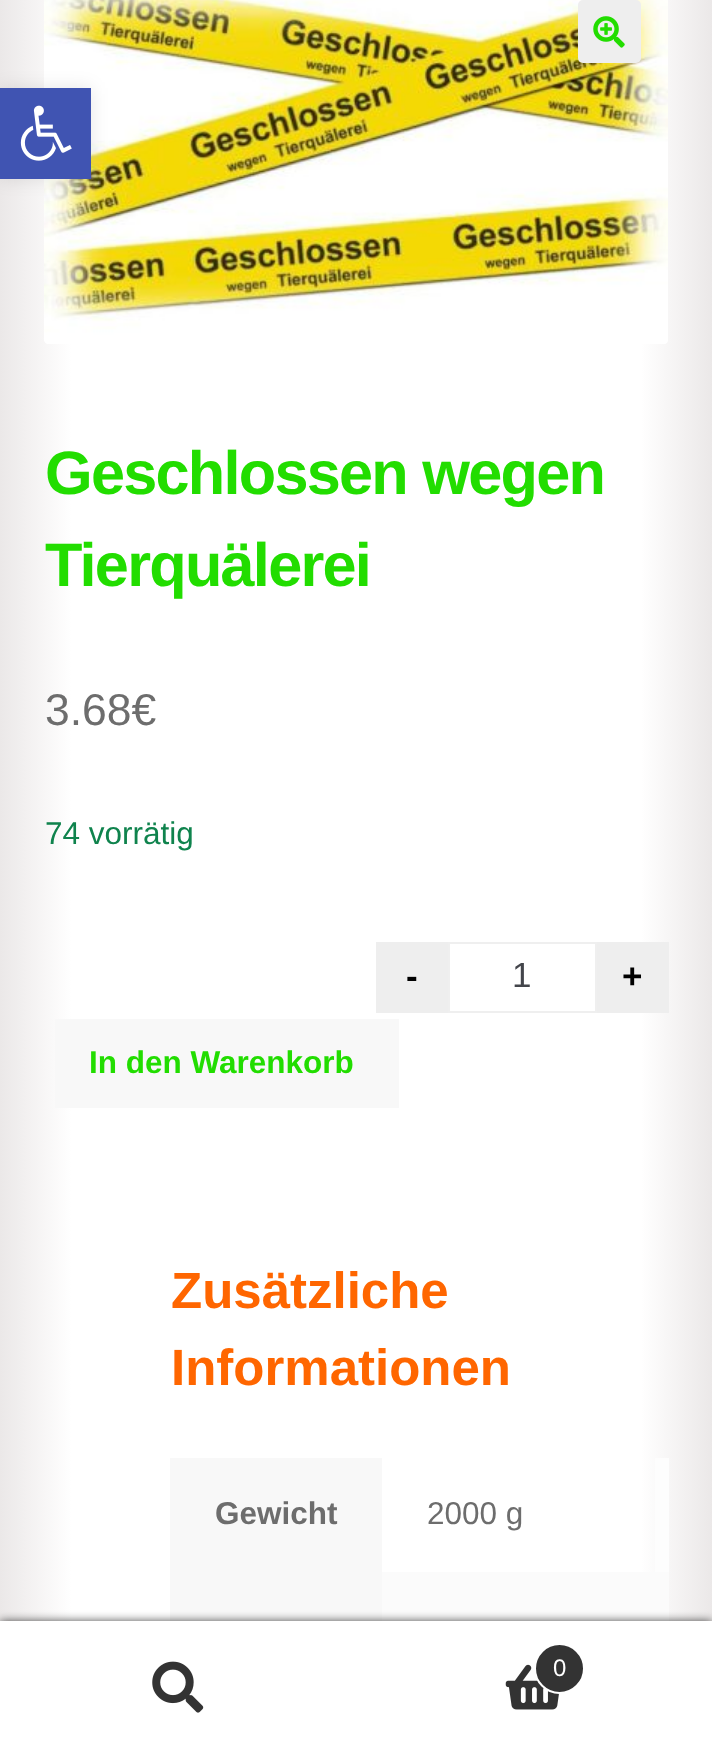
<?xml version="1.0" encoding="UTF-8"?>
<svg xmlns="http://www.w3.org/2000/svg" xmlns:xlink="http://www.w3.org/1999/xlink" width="712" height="1755">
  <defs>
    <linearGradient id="g1" gradientUnits="userSpaceOnUse" x1="0" y1="1182" x2="712" y2="1182"><stop offset="0" stop-color="#ebe8e8" /><stop offset="0.1" stop-color="#ffffff" /><stop offset="0.9" stop-color="#ffffff" /><stop offset="1" stop-color="#ebe8e8" /></linearGradient>
  </defs>
  <rect width="100%" height="100%" fill="#ffffff" />
  <rect width="712" height="1621" fill="url(#g1)" />
  <image x="44" y="0" width="624" height="344" xlink:href="image2.png" />
  <rect y="88" width="91" height="91" fill="#000000" fill-opacity="0.1" filter="blur(9px)" />
  <rect y="88" width="91" height="91" fill="#4054b2" />
  <image x="20" y="105" width="52" height="56" xlink:href="image1.png" />
  <rect x="578" width="63" height="63" rx="5" fill="#eeeeee" />
  <image x="593" y="16" width="32" height="32" xlink:href="image3.png" />
  <rect x="376" y="942" width="72" height="71" fill="#eeeeee" />
  <rect x="449" y="943" width="147" height="69" fill="none" stroke="#efefef" stroke-width="2" />
  <rect x="597" y="942" width="72" height="71" fill="#eeeeee" />
  <rect x="55" y="1019" width="344" height="89" fill="#f8f8f8" />
  <rect x="170" y="1458" width="212" height="163" fill="#f8f8f8" />
  <rect x="655" y="1458" width="14" height="114" fill="#fdfdfd" />
  <rect x="382" y="1572" width="287" height="49" fill="#fbfbfb" />
  <rect y="1621" width="712" height="134" fill="#000000" fill-opacity="0.7" filter="blur(5px)" />
  <rect y="1621" width="712" height="1" fill="#ffffff" />
  <rect y="1622" width="712" height="133" fill="#ffffff" />
  <image x="152" y="1661" width="52" height="52" xlink:href="image4.png" />
  <image x="505" y="1664" width="54" height="46" xlink:href="image5.png" />
  <circle cx="559.5" cy="1668.5" r="24.5" fill="#333333" stroke="#ffffff" stroke-width="2" />
  <text x="45" y="494" style="font-family: Liberation Sans; font-size: 61.25px; font-weight: bold; letter-spacing: -1.75px; fill: #22dd00">Geschlossen wegen</text>
  <text x="45" y="586" style="font-family: Liberation Sans; font-size: 61.25px; font-weight: bold; letter-spacing: -1.75px; fill: #22dd00">Tierquälerei</text>
  <text x="45" y="725" style="font-family: Liberation Sans; font-size: 44.5px; fill: #6d6d6d">3.68€</text>
  <text x="45" y="844" style="font-family: Liberation Sans; font-size: 31.5px; fill: #0f834d">74 vorrätig</text>
  <text x="406" y="988" style="font-family: Liberation Sans; font-size: 35px; font-weight: bold; fill: #000000">-</text>
  <text x="512" y="987" style="font-family: Liberation Sans; font-size: 35px; fill: #43454b">1</text>
  <text x="622" y="988" style="font-family: Liberation Sans; font-size: 35px; font-weight: bold; fill: #000000">+</text>
  <text x="89" y="1073" style="font-family: Liberation Sans; font-size: 31.5px; font-weight: bold; fill: #22dd00">In den Warenkorb</text>
  <text x="171" y="1308" style="font-family: Liberation Sans; font-size: 51px; font-weight: bold; fill: #ff6600">Zusätzliche</text>
  <text x="171" y="1385" style="font-family: Liberation Sans; font-size: 51px; font-weight: bold; fill: #ff6600">Informationen</text>
  <text x="215" y="1524" style="font-family: Liberation Sans; font-size: 31.5px; font-weight: bold; fill: #6d6d6d">Gewicht</text>
  <text x="427" y="1524" style="font-family: Liberation Sans; font-size: 31.5px; fill: #6d6d6d">2000 g</text>
  <text x="553" y="1676" style="font-family: Liberation Sans; font-size: 24px; fill: #ffffff">0</text>
</svg>
